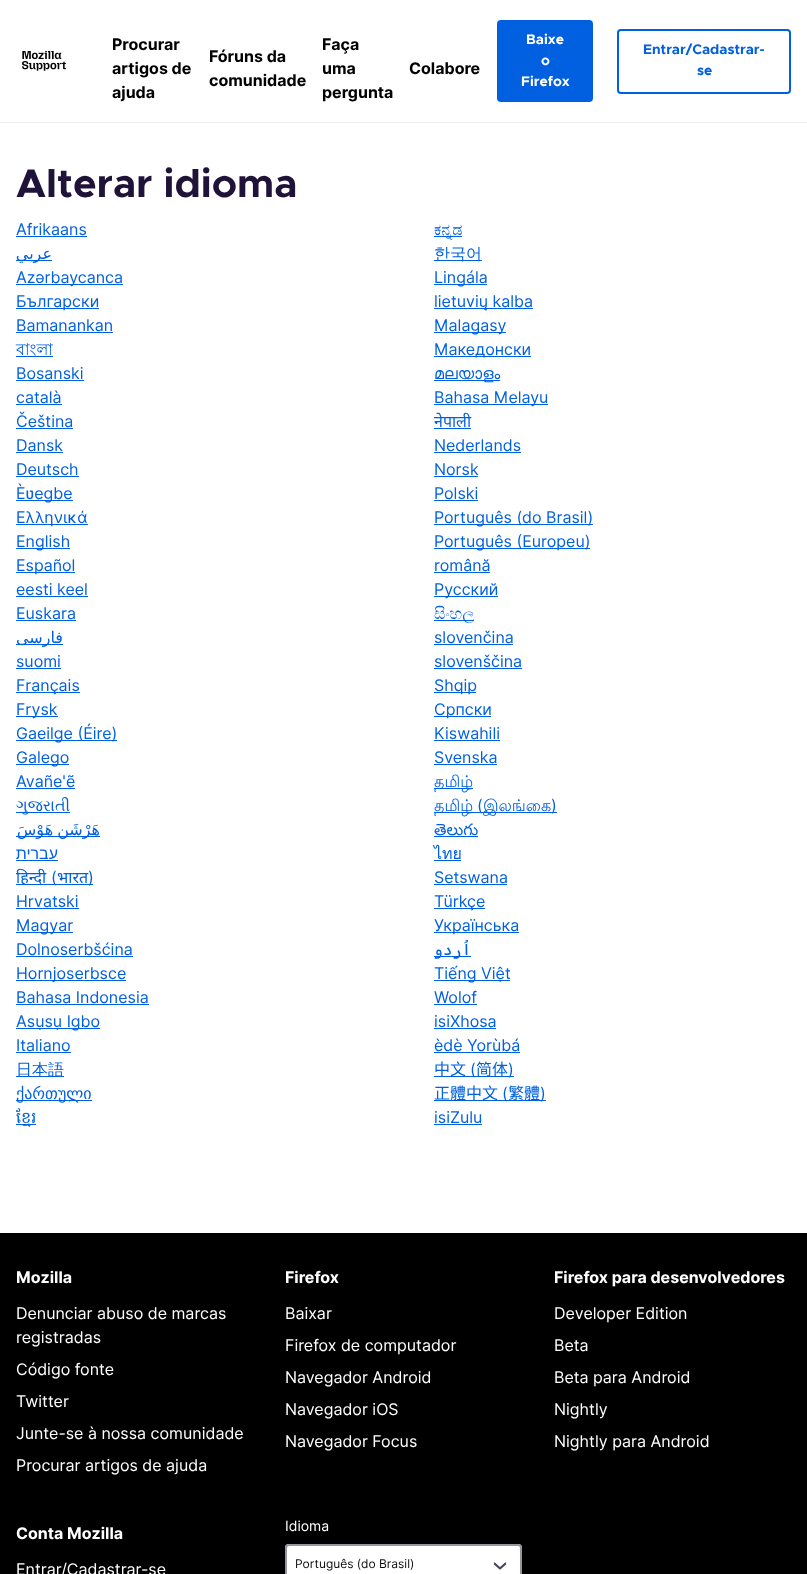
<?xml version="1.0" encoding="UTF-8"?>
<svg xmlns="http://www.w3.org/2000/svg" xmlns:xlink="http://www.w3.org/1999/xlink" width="807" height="1574">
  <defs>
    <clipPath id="clip1"><rect x="494" y="1560" width="12" height="12" /></clipPath>
  </defs>
  <rect width="100%" height="100%" fill="#ffffff" />
  <rect y="122" width="807" height="1" fill="#ededf0" />
  <image x="22" y="51" width="44" height="20" xlink:href="image1.png" />
  <rect x="497" y="20" width="96" height="82" rx="4" fill="#0060df" />
  <rect x="618" y="30" width="172" height="63" rx="3" fill="none" stroke="#0060df" stroke-width="2" />
  <rect x="16" y="236" width="71" height="1" fill="#0060df" />
  <rect x="434" y="236" width="28" height="1" fill="#0060df" />
  <rect x="16" y="260" width="36" height="1" fill="#0060df" />
  <rect x="434" y="260" width="48" height="1" fill="#0060df" />
  <rect x="16" y="284" width="107" height="1" fill="#0060df" />
  <rect x="434" y="284" width="53" height="1" fill="#0060df" />
  <rect x="16" y="308" width="83" height="1" fill="#0060df" />
  <rect x="434" y="308" width="99" height="1" fill="#0060df" />
  <rect x="16" y="332" width="97" height="1" fill="#0060df" />
  <rect x="434" y="332" width="72" height="1" fill="#0060df" />
  <rect x="16" y="356" width="37" height="1" fill="#0060df" />
  <rect x="434" y="356" width="97" height="1" fill="#0060df" />
  <rect x="16" y="380" width="68" height="1" fill="#0060df" />
  <rect x="434" y="380" width="66" height="1" fill="#0060df" />
  <rect x="16" y="404" width="46" height="1" fill="#0060df" />
  <rect x="434" y="404" width="114" height="1" fill="#0060df" />
  <rect x="16" y="428" width="57" height="1" fill="#0060df" />
  <rect x="434" y="428" width="37" height="1" fill="#0060df" />
  <rect x="16" y="452" width="47" height="1" fill="#0060df" />
  <rect x="434" y="452" width="87" height="1" fill="#0060df" />
  <rect x="16" y="476" width="63" height="1" fill="#0060df" />
  <rect x="434" y="476" width="44" height="1" fill="#0060df" />
  <rect x="16" y="500" width="57" height="1" fill="#0060df" />
  <rect x="434" y="500" width="44" height="1" fill="#0060df" />
  <rect x="16" y="524" width="72" height="1" fill="#0060df" />
  <rect x="434" y="524" width="159" height="1" fill="#0060df" />
  <rect x="16" y="548" width="54" height="1" fill="#0060df" />
  <rect x="434" y="548" width="156" height="1" fill="#0060df" />
  <rect x="16" y="572" width="59" height="1" fill="#0060df" />
  <rect x="434" y="572" width="56" height="1" fill="#0060df" />
  <rect x="16" y="596" width="72" height="1" fill="#0060df" />
  <rect x="434" y="596" width="64" height="1" fill="#0060df" />
  <rect x="16" y="620" width="60" height="1" fill="#0060df" />
  <rect x="434" y="620" width="40" height="1" fill="#0060df" />
  <rect x="16" y="644" width="47" height="1" fill="#0060df" />
  <rect x="434" y="644" width="79" height="1" fill="#0060df" />
  <rect x="16" y="668" width="45" height="1" fill="#0060df" />
  <rect x="434" y="668" width="88" height="1" fill="#0060df" />
  <rect x="16" y="692" width="64" height="1" fill="#0060df" />
  <rect x="434" y="692" width="42" height="1" fill="#0060df" />
  <rect x="16" y="716" width="42" height="1" fill="#0060df" />
  <rect x="434" y="716" width="57" height="1" fill="#0060df" />
  <rect x="16" y="740" width="101" height="1" fill="#0060df" />
  <rect x="434" y="740" width="66" height="1" fill="#0060df" />
  <rect x="16" y="764" width="53" height="1" fill="#0060df" />
  <rect x="434" y="764" width="63" height="1" fill="#0060df" />
  <rect x="16" y="788" width="59" height="1" fill="#0060df" />
  <rect x="434" y="788" width="39" height="1" fill="#0060df" />
  <rect x="16" y="812" width="54" height="1" fill="#0060df" />
  <rect x="434" y="812" width="123" height="1" fill="#0060df" />
  <rect x="16" y="836" width="84" height="1" fill="#0060df" />
  <rect x="434" y="836" width="44" height="1" fill="#0060df" />
  <rect x="16" y="860" width="42" height="1" fill="#0060df" />
  <rect x="434" y="860" width="27" height="1" fill="#0060df" />
  <rect x="16" y="884" width="77" height="1" fill="#0060df" />
  <rect x="434" y="884" width="73" height="1" fill="#0060df" />
  <rect x="16" y="908" width="63" height="1" fill="#0060df" />
  <rect x="434" y="908" width="51" height="1" fill="#0060df" />
  <rect x="16" y="932" width="57" height="1" fill="#0060df" />
  <rect x="434" y="932" width="85" height="1" fill="#0060df" />
  <rect x="16" y="956" width="117" height="1" fill="#0060df" />
  <rect x="434" y="956" width="37" height="1" fill="#0060df" />
  <rect x="16" y="980" width="110" height="1" fill="#0060df" />
  <rect x="434" y="980" width="76" height="1" fill="#0060df" />
  <rect x="16" y="1004" width="133" height="1" fill="#0060df" />
  <rect x="434" y="1004" width="43" height="1" fill="#0060df" />
  <rect x="16" y="1028" width="84" height="1" fill="#0060df" />
  <rect x="434" y="1028" width="62" height="1" fill="#0060df" />
  <rect x="16" y="1052" width="55" height="1" fill="#0060df" />
  <rect x="434" y="1052" width="86" height="1" fill="#0060df" />
  <rect x="16" y="1076" width="48" height="1" fill="#0060df" />
  <rect x="434" y="1076" width="80" height="1" fill="#0060df" />
  <rect x="16" y="1100" width="76" height="1" fill="#0060df" />
  <rect x="434" y="1100" width="112" height="1" fill="#0060df" />
  <rect x="16" y="1124" width="20" height="1" fill="#0060df" />
  <rect x="434" y="1124" width="48" height="1" fill="#0060df" />
  <rect y="1233" width="807" height="341" fill="#000000" />
  <rect x="285" y="1544" width="237" height="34" rx="4" fill="#ffffff" />
  <g clip-path="url(#clip1)">
    <path d="M 494.5 1563.5 l 5.5 5 l 5.5 -5" fill="none" stroke="#42435a" stroke-width="2" stroke-linecap="round" stroke-linejoin="round" />
  </g>
  <rect x="286" y="1545" width="235" height="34" rx="3" fill="none" stroke="#9595a2" stroke-width="2" />
  <text x="112" y="50" style="font-family: Inter; font-size: 16px; font-weight: bold; fill: #000000">Procurar</text>
  <text x="112" y="74" style="font-family: Inter; font-size: 16px; font-weight: bold; fill: #000000">artigos de</text>
  <text x="112" y="98" style="font-family: Inter; font-size: 16px; font-weight: bold; fill: #000000">ajuda</text>
  <text x="209" y="62" style="font-family: Inter; font-size: 16px; font-weight: bold; fill: #000000">Fóruns da</text>
  <text x="209" y="86" style="font-family: Inter; font-size: 16px; font-weight: bold; fill: #000000">comunidade</text>
  <text x="322" y="50" style="font-family: Inter; font-size: 16px; font-weight: bold; fill: #000000">Faça</text>
  <text x="322" y="74" style="font-family: Inter; font-size: 16px; font-weight: bold; fill: #000000">uma</text>
  <text x="322" y="98" style="font-family: Inter; font-size: 16px; font-weight: bold; fill: #000000">pergunta</text>
  <text x="409" y="74" style="font-family: Inter; font-size: 16px; font-weight: bold; fill: #000000">Colabore</text>
  <text x="526" y="44" style="font-family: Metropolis; font-size: 14px; font-weight: bold; fill: #ffffff">Baixe</text>
  <text x="541" y="65" style="font-family: Metropolis; font-size: 14px; font-weight: bold; fill: #ffffff">o</text>
  <text x="521" y="86" style="font-family: Metropolis; font-size: 14px; font-weight: bold; fill: #ffffff">Firefox</text>
  <text x="643" y="54" style="font-family: Metropolis; font-size: 14px; font-weight: bold; fill: #0060df">Entrar/Cadastrar-</text>
  <text x="697" y="75" style="font-family: Metropolis; font-size: 14px; font-weight: bold; fill: #0060df">se</text>
  <text x="16" y="197" style="font-family: Metropolis; font-size: 40px; font-weight: bold; fill: #20133a">Alterar idioma</text>
  <text x="16" y="235" style="font-family: Inter; font-size: 16px; fill: #0060df">Afrikaans</text>
  <text x="434" y="235" style="font-family: FreeSerif; font-size: 16px; fill: #0060df">ಕನ್ನಡ</text>
  <text x="52" y="259" style="font-family: DejaVu Sans; font-size: 16px; direction: rtl; fill: #0060df">عربي</text>
  <text x="434" y="259" style="font-family: WenQuanYi Zen Hei; font-size: 16px; font-weight: 500; fill: #0060df">한국어</text>
  <text x="16" y="283" style="font-family: Inter; font-size: 16px; fill: #0060df">Azərbaycanca</text>
  <text x="434" y="283" style="font-family: Inter; font-size: 16px; fill: #0060df">Lingála</text>
  <text x="16" y="307" style="font-family: Inter; font-size: 16px; fill: #0060df">Български</text>
  <text x="434" y="307" style="font-family: Inter; font-size: 16px; fill: #0060df">lietuvių kalba</text>
  <text x="16" y="331" style="font-family: Inter; font-size: 16px; fill: #0060df">Bamanankan</text>
  <text x="434" y="331" style="font-family: Inter; font-size: 16px; fill: #0060df">Malagasy</text>
  <text x="16" y="355" style="font-family: Lohit Bengali; font-size: 16px; fill: #0060df">বাংলা</text>
  <text x="434" y="355" style="font-family: Inter; font-size: 16px; fill: #0060df">Македонски</text>
  <text x="16" y="379" style="font-family: Inter; font-size: 16px; fill: #0060df">Bosanski</text>
  <text x="434" y="379" style="font-family: FreeSans; font-size: 16px; fill: #0060df">മലയാളം</text>
  <text x="16" y="403" style="font-family: Inter; font-size: 16px; fill: #0060df">català</text>
  <text x="434" y="403" style="font-family: Inter; font-size: 16px; fill: #0060df">Bahasa Melayu</text>
  <text x="16" y="427" style="font-family: Inter; font-size: 16px; fill: #0060df">Čeština</text>
  <text x="434" y="427" style="font-family: Noto Sans; font-size: 16px; fill: #0060df">नेपाली</text>
  <text x="16" y="451" style="font-family: Inter; font-size: 16px; fill: #0060df">Dansk</text>
  <text x="434" y="451" style="font-family: Inter; font-size: 16px; fill: #0060df">Nederlands</text>
  <text x="16" y="475" style="font-family: Inter; font-size: 16px; fill: #0060df">Deutsch</text>
  <text x="434" y="475" style="font-family: Inter; font-size: 16px; fill: #0060df">Norsk</text>
  <text x="16" y="499" style="font-family: Inter; font-size: 16px; fill: #0060df">Èʋegbe</text>
  <text x="434" y="499" style="font-family: Inter; font-size: 16px; fill: #0060df">Polski</text>
  <text x="16" y="523" style="font-family: Inter; font-size: 16px; fill: #0060df">Ελληνικά</text>
  <text x="434" y="523" style="font-family: Inter; font-size: 16px; fill: #0060df">Português (do Brasil)</text>
  <text x="16" y="547" style="font-family: Inter; font-size: 16px; fill: #0060df">English</text>
  <text x="434" y="547" style="font-family: Inter; font-size: 16px; fill: #0060df">Português (Europeu)</text>
  <text x="16" y="571" style="font-family: Inter; font-size: 16px; fill: #0060df">Español</text>
  <text x="434" y="571" style="font-family: Inter; font-size: 16px; fill: #0060df">română</text>
  <text x="16" y="595" style="font-family: Inter; font-size: 16px; fill: #0060df">eesti keel</text>
  <text x="434" y="595" style="font-family: Inter; font-size: 16px; fill: #0060df">Русский</text>
  <text x="16" y="619" style="font-family: Inter; font-size: 16px; fill: #0060df">Euskara</text>
  <text x="434" y="619" style="font-family: FreeSerif; font-size: 16px; fill: #0060df">සිංහල</text>
  <text x="63" y="643" style="font-family: DejaVu Sans; font-size: 16px; direction: rtl; fill: #0060df">فارسی</text>
  <text x="434" y="643" style="font-family: Inter; font-size: 16px; fill: #0060df">slovenčina</text>
  <text x="16" y="667" style="font-family: Inter; font-size: 16px; fill: #0060df">suomi</text>
  <text x="434" y="667" style="font-family: Inter; font-size: 16px; fill: #0060df">slovenščina</text>
  <text x="16" y="691" style="font-family: Inter; font-size: 16px; fill: #0060df">Français</text>
  <text x="434" y="691" style="font-family: Inter; font-size: 16px; fill: #0060df">Shqip</text>
  <text x="16" y="715" style="font-family: Inter; font-size: 16px; fill: #0060df">Frysk</text>
  <text x="434" y="715" style="font-family: Inter; font-size: 16px; fill: #0060df">Српски</text>
  <text x="16" y="739" style="font-family: Inter; font-size: 16px; fill: #0060df">Gaeilge (Éire)</text>
  <text x="434" y="739" style="font-family: Inter; font-size: 16px; fill: #0060df">Kiswahili</text>
  <text x="16" y="763" style="font-family: Inter; font-size: 16px; fill: #0060df">Galego</text>
  <text x="434" y="763" style="font-family: Inter; font-size: 16px; fill: #0060df">Svenska</text>
  <text x="16" y="787" style="font-family: Inter; font-size: 16px; fill: #0060df">Avañe'ẽ</text>
  <text x="434" y="787" style="font-family: Lohit Tamil; font-size: 16px; fill: #0060df">தமிழ்</text>
  <text x="16" y="811" style="font-family: FreeSerif; font-size: 16px; fill: #0060df">ગુજરાતી</text>
  <text x="434" y="811" style="font-family: Lohit Tamil; font-size: 16px; fill: #0060df">தமிழ்</text>
  <text x="477" y="811" style="font-family: Inter; font-size: 16px; fill: #0060df">(</text>
  <text x="483" y="811" style="font-family: Lohit Tamil; font-size: 16px; fill: #0060df">இலங்கை</text>
  <text x="551" y="811" style="font-family: Inter; font-size: 16px; fill: #0060df">)</text>
  <text x="100" y="835" word-spacing="-1" style="font-family: DejaVu Sans; font-size: 16px; direction: rtl; fill: #0060df">هَرْشَن هَوْسَ</text>
  <text x="434" y="835" style="font-family: Noto Sans Telugu; font-size: 16px; fill: #0060df">తెలుగు</text>
  <text x="58" y="859" style="font-family: Liberation Sans; font-size: 16px; direction: rtl; fill: #0060df">עברית</text>
  <text x="434" y="859" style="font-family: Loma; font-size: 16px; fill: #0060df">ไทย</text>
  <text x="16" y="883" style="font-family: Noto Sans; font-size: 16px; fill: #0060df">हिन्दी</text>
  <text x="51" y="883" style="font-family: Inter; font-size: 16px; fill: #0060df">(</text>
  <text x="57" y="883" style="font-family: Noto Sans; font-size: 16px; fill: #0060df">भारत</text>
  <text x="88" y="883" style="font-family: Inter; font-size: 16px; fill: #0060df">)</text>
  <text x="434" y="883" style="font-family: Inter; font-size: 16px; fill: #0060df">Setswana</text>
  <text x="16" y="907" style="font-family: Inter; font-size: 16px; fill: #0060df">Hrvatski</text>
  <text x="434" y="907" style="font-family: Inter; font-size: 16px; fill: #0060df">Türkçe</text>
  <text x="16" y="931" style="font-family: Inter; font-size: 16px; fill: #0060df">Magyar</text>
  <text x="434" y="931" style="font-family: Inter; font-size: 16px; fill: #0060df">Українська</text>
  <text x="16" y="955" style="font-family: Inter; font-size: 16px; fill: #0060df">Dolnoserbšćina</text>
  <text x="471" y="955" style="font-family: Cascadia Code; font-size: 16px; direction: rtl; fill: #0060df">اُردو</text>
  <text x="16" y="979" style="font-family: Inter; font-size: 16px; fill: #0060df">Hornjoserbsce</text>
  <text x="434" y="979" style="font-family: Inter; font-size: 16px; fill: #0060df">Tiếng Việt</text>
  <text x="16" y="1003" style="font-family: Inter; font-size: 16px; fill: #0060df">Bahasa Indonesia</text>
  <text x="434" y="1003" style="font-family: Inter; font-size: 16px; fill: #0060df">Wolof</text>
  <text x="16" y="1027" style="font-family: Inter; font-size: 16px; fill: #0060df">Asụsụ Igbo</text>
  <text x="434" y="1027" style="font-family: Inter; font-size: 16px; fill: #0060df">isiXhosa</text>
  <text x="16" y="1051" style="font-family: Inter; font-size: 16px; fill: #0060df">Italiano</text>
  <text x="434" y="1051" style="font-family: Inter; font-size: 16px; fill: #0060df">èdè Yorùbá</text>
  <text x="16" y="1075" style="font-family: WenQuanYi Zen Hei; font-size: 16px; font-weight: 500; fill: #0060df">日本語</text>
  <text x="434" y="1075" style="font-family: Noto Sans CJK SC; font-size: 16px; fill: #0060df">中文</text>
  <text x="470" y="1075" style="font-family: Inter; font-size: 16px; fill: #0060df">(</text>
  <text x="476" y="1075" style="font-family: Noto Sans CJK SC; font-size: 16px; fill: #0060df">简体</text>
  <text x="508" y="1075" style="font-family: Inter; font-size: 16px; fill: #0060df">)</text>
  <text x="16" y="1099" style="font-family: DejaVu Sans; font-size: 16px; fill: #0060df">ქართული</text>
  <text x="434" y="1099" style="font-family: Noto Sans CJK TC; font-size: 16px; fill: #0060df">正體中文</text>
  <text x="502" y="1099" style="font-family: Inter; font-size: 16px; fill: #0060df">(</text>
  <text x="508" y="1099" style="font-family: Noto Sans CJK TC; font-size: 16px; fill: #0060df">繁體</text>
  <text x="540" y="1099" style="font-family: Inter; font-size: 16px; fill: #0060df">)</text>
  <text x="16" y="1123" style="font-family: Hanuman; font-size: 16px; fill: #0060df">ខ្មែរ</text>
  <text x="434" y="1123" style="font-family: Inter; font-size: 16px; fill: #0060df">isiZulu</text>
  <text x="16" y="1283" style="font-family: Inter; font-size: 16px; font-weight: bold; fill: #ffffff">Mozilla</text>
  <text x="16" y="1319" style="font-family: Inter; font-size: 16px; fill: #ffffff">Denunciar abuso de marcas</text>
  <text x="16" y="1343" style="font-family: Inter; font-size: 16px; fill: #ffffff">registradas</text>
  <text x="16" y="1375" style="font-family: Inter; font-size: 16px; fill: #ffffff">Código fonte</text>
  <text x="16" y="1407" style="font-family: Inter; font-size: 16px; fill: #ffffff">Twitter</text>
  <text x="16" y="1439" style="font-family: Inter; font-size: 16px; fill: #ffffff">Junte-se à nossa comunidade</text>
  <text x="16" y="1471" style="font-family: Inter; font-size: 16px; fill: #ffffff">Procurar artigos de ajuda</text>
  <text x="285" y="1283" style="font-family: Inter; font-size: 16px; font-weight: bold; fill: #ffffff">Firefox</text>
  <text x="285" y="1319" style="font-family: Inter; font-size: 16px; fill: #ffffff">Baixar</text>
  <text x="285" y="1351" style="font-family: Inter; font-size: 16px; fill: #ffffff">Firefox de computador</text>
  <text x="285" y="1383" style="font-family: Inter; font-size: 16px; fill: #ffffff">Navegador Android</text>
  <text x="285" y="1415" style="font-family: Inter; font-size: 16px; fill: #ffffff">Navegador iOS</text>
  <text x="285" y="1447" style="font-family: Inter; font-size: 16px; fill: #ffffff">Navegador Focus</text>
  <text x="554" y="1283" style="font-family: Inter; font-size: 16px; font-weight: bold; fill: #ffffff">Firefox para desenvolvedores</text>
  <text x="554" y="1319" style="font-family: Inter; font-size: 16px; fill: #ffffff">Developer Edition</text>
  <text x="554" y="1351" style="font-family: Inter; font-size: 16px; fill: #ffffff">Beta</text>
  <text x="554" y="1383" style="font-family: Inter; font-size: 16px; fill: #ffffff">Beta para Android</text>
  <text x="554" y="1415" style="font-family: Inter; font-size: 16px; fill: #ffffff">Nightly</text>
  <text x="554" y="1447" style="font-family: Inter; font-size: 16px; fill: #ffffff">Nightly para Android</text>
  <text x="16" y="1539" style="font-family: Inter; font-size: 16px; font-weight: bold; fill: #ffffff">Conta Mozilla</text>
  <text x="16" y="1575" style="font-family: Inter; font-size: 16px; fill: #ffffff">Entrar/Cadastrar-se</text>
  <text x="285" y="1531" style="font-family: Inter; font-size: 14px; fill: #ffffff">Idioma</text>
  <text x="295" y="1568" style="font-family: Inter; font-size: 12px; fill: #0c0c0d">Português (do Brasil)</text>
</svg>
